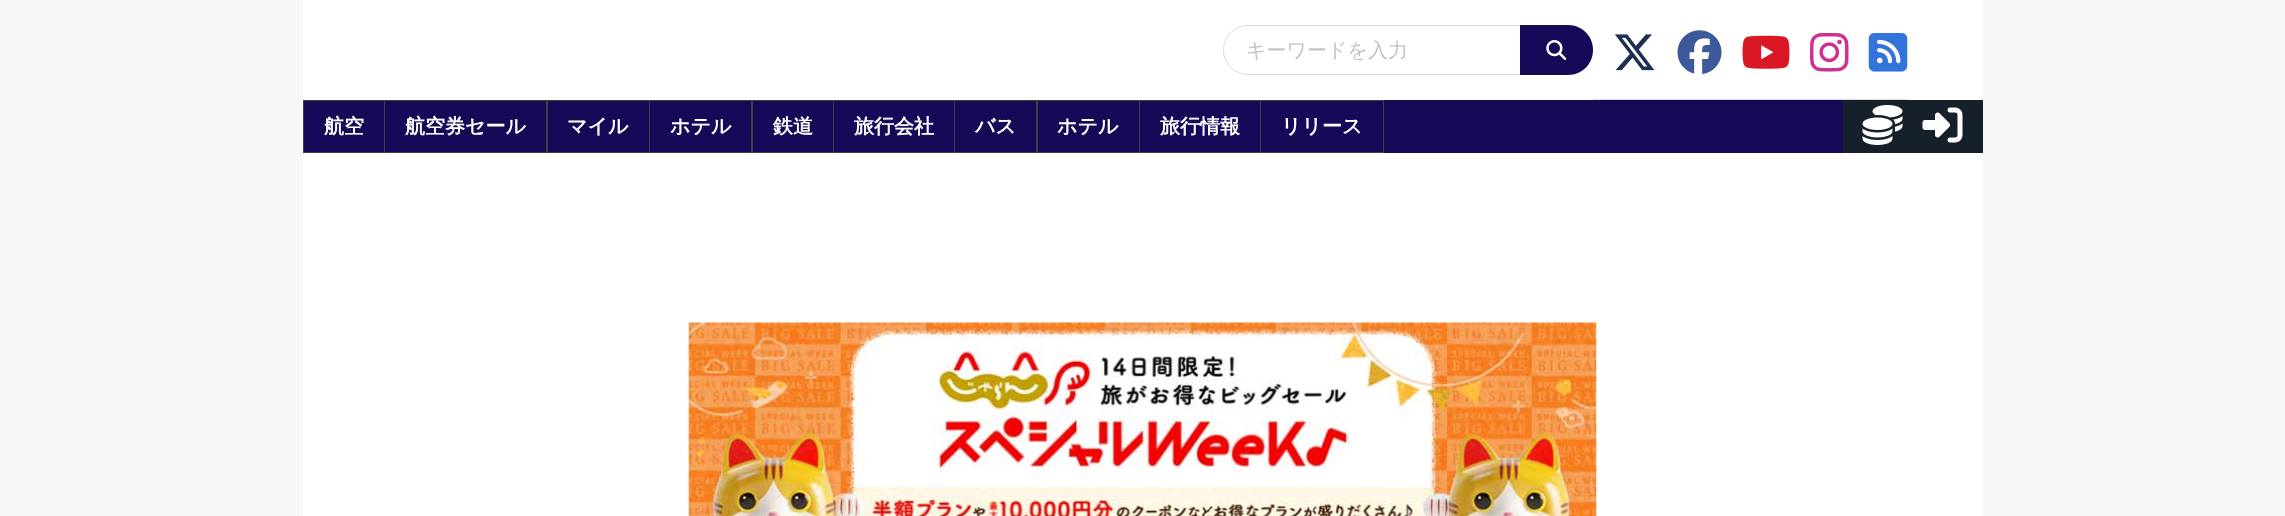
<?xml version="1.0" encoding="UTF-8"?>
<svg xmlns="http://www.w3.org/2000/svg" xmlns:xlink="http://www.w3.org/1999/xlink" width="2285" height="516">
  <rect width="100%" height="100%" fill="#f7f7f7" />
  <rect x="303" width="1680" height="516" fill="#ffffff" />
  <path d="M 1248 25.5 h 272.5 v 49 h -272.5 c -13.5 0 -24.5 -11 -24.5 -24.5 c 0 -13.5 11 -24.5 24.5 -24.5 z" fill="none" stroke="#dbdbdb" />
  <path d="M 1520 25 h 48 c 14 0 25 11 25 25 c 0 14 -11 25 -25 25 h -48 z" fill="#150958" />
  <image x="1546" y="40" width="21" height="20" xlink:href="image1.png" />
  <rect x="1593" y="99" width="315" height="1" fill="#dbdbdb" />
  <image x="1615" y="34" width="40" height="37" xlink:href="image2.png" />
  <image x="1677" y="30" width="45" height="44" xlink:href="image3.png" />
  <image x="1742" y="35" width="48" height="34" xlink:href="image4.png" />
  <image x="1810" y="33" width="39" height="39" xlink:href="image5.png" />
  <image x="1868" y="33" width="40" height="39" xlink:href="image6.png" />
  <rect x="304" y="100" width="1539" height="53" fill="#150958" />
  <rect x="303.5" y="100.5" width="81" height="52" fill="none" stroke="#414042" />
  <rect x="384.5" y="100.5" width="163" height="52" fill="none" stroke="#414042" />
  <rect x="546.5" y="100.5" width="103" height="52" fill="none" stroke="#414042" />
  <rect x="649.5" y="100.5" width="103" height="52" fill="none" stroke="#414042" />
  <rect x="751.5" y="100.5" width="82" height="52" fill="none" stroke="#414042" />
  <rect x="833.5" y="100.5" width="121" height="52" fill="none" stroke="#414042" />
  <rect x="954.5" y="100.5" width="83" height="52" fill="none" stroke="#414042" />
  <rect x="1036.5" y="100.5" width="103" height="52" fill="none" stroke="#414042" />
  <rect x="1139.5" y="100.5" width="121" height="52" fill="none" stroke="#414042" />
  <rect x="1260.5" y="100.5" width="123" height="52" fill="none" stroke="#414042" />
  <rect x="1843" y="100" width="140" height="53" fill="#15202b" />
  <image x="1862" y="105" width="41" height="40" xlink:href="image7.png" />
  <image x="1922" y="107" width="41" height="36" xlink:href="image8.png" />
  <image x="688" y="322" width="909" height="194" xlink:href="image9.png" />
  <text x="1246" y="57" style="font-family: WenQuanYi Zen Hei; font-size: 20px; font-weight: 500; fill: #c3c3c3">キーワードを入力</text>
  <text x="324" y="133" style="font-family: WenQuanYi Zen Hei; font-size: 20px; font-weight: bold; fill: #ffffff">航空</text>
  <text x="405" y="133" style="font-family: WenQuanYi Zen Hei; font-size: 20px; font-weight: bold; fill: #ffffff">航空券セール</text>
  <text x="567" y="133" style="font-family: WenQuanYi Zen Hei; font-size: 20px; font-weight: bold; fill: #ffffff">マイル</text>
  <text x="670" y="133" style="font-family: WenQuanYi Zen Hei; font-size: 20px; font-weight: bold; fill: #ffffff">ホテル</text>
  <text x="773" y="133" style="font-family: WenQuanYi Zen Hei; font-size: 20px; font-weight: bold; fill: #ffffff">鉄道</text>
  <text x="854" y="133" style="font-family: WenQuanYi Zen Hei; font-size: 20px; font-weight: bold; fill: #ffffff">旅行会社</text>
  <text x="975" y="133" style="font-family: WenQuanYi Zen Hei; font-size: 20px; font-weight: bold; fill: #ffffff">バス</text>
  <text x="1057" y="133" style="font-family: WenQuanYi Zen Hei; font-size: 20px; font-weight: bold; fill: #ffffff">ホテル</text>
  <text x="1160" y="133" style="font-family: WenQuanYi Zen Hei; font-size: 20px; font-weight: bold; fill: #ffffff">旅行情報</text>
  <text x="1281" y="133" style="font-family: WenQuanYi Zen Hei; font-size: 20px; font-weight: bold; fill: #ffffff">リリース</text>
</svg>
